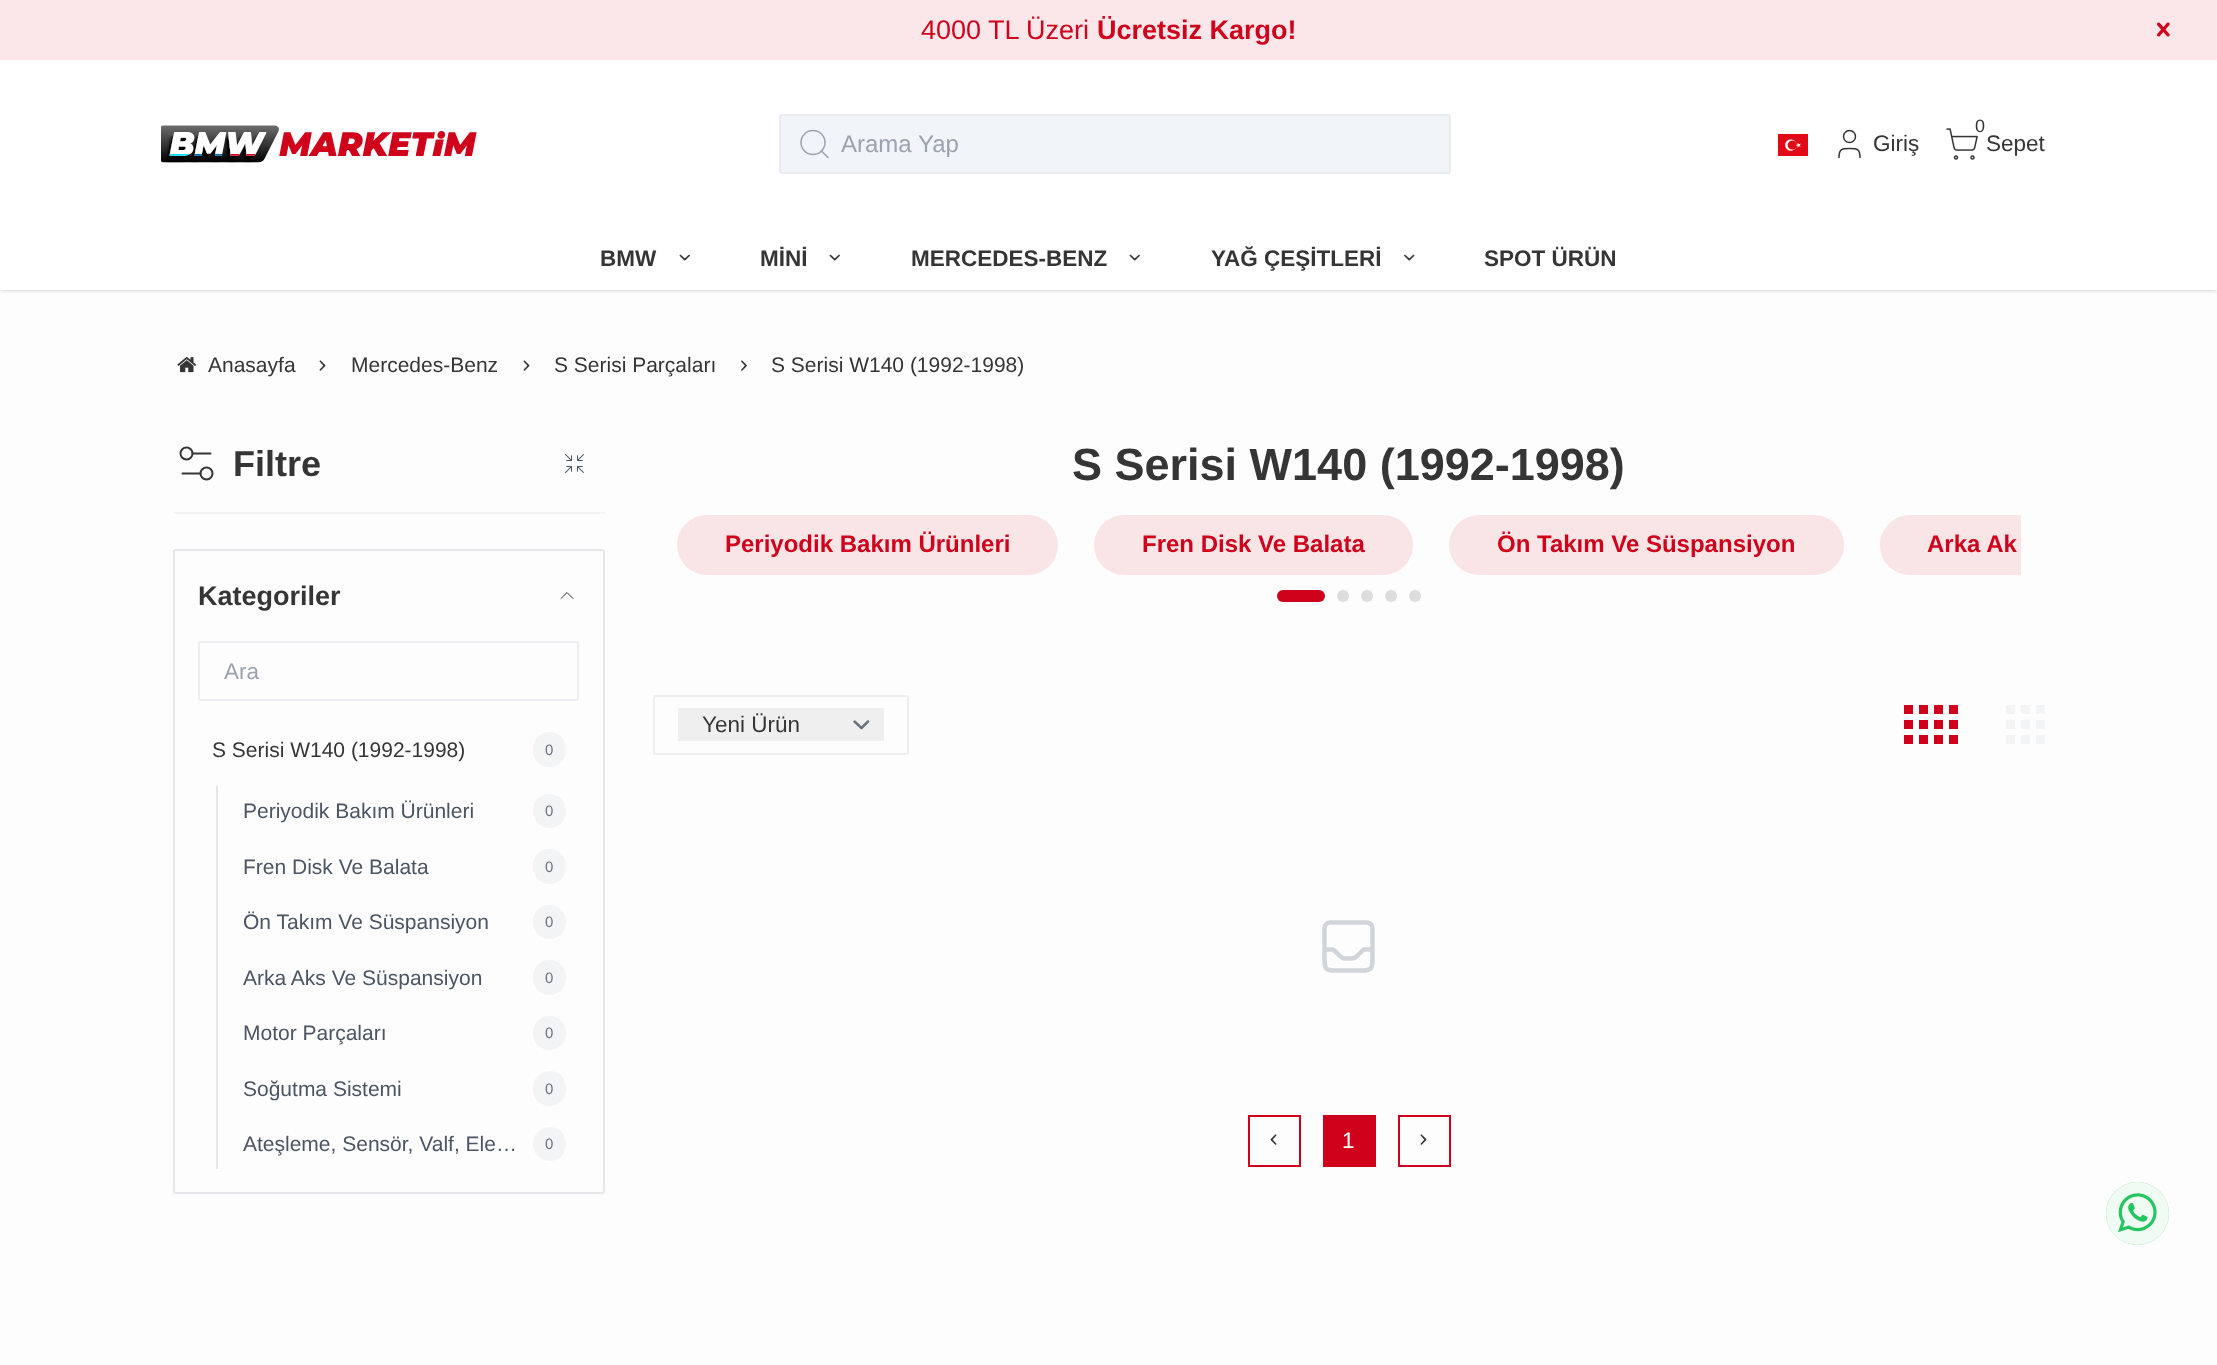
<?xml version="1.0" encoding="UTF-8"?>
<svg xmlns="http://www.w3.org/2000/svg" xmlns:xlink="http://www.w3.org/1999/xlink" width="2217" height="1365">
  <rect width="100%" height="100%" fill="#fdfdfd" />
  <rect x="2" y="3" width="2214" height="287" fill="#000000" fill-opacity="0.1" filter="blur(1.5px)" />
  <rect y="2" width="2217" height="289" fill="#000000" fill-opacity="0.1" filter="blur(2px)" />
  <rect y="60" width="2217" height="230" fill="#ffffff" />
  <rect width="2217" height="60" fill="#fbe6e9" />
  <image x="2157" y="22" width="13" height="15" xlink:href="image1.png" />
  <image x="161" y="125" width="316" height="38" xlink:href="image2.png" />
  <rect x="779" y="114" width="672" height="60" rx="3" fill="#f1f5f9" />
  <rect x="780" y="115" width="670" height="58" rx="2" fill="none" stroke="#e5e7eb" stroke-opacity="0.7" stroke-width="2" />
  <circle cx="813" cy="142.5" r="12" fill="none" stroke="#9ca3af" stroke-width="1.5" />
  <path d="M 828 157.5 l -6.5 -6.5" fill="none" stroke="#9ca3af" stroke-width="1.5" stroke-linecap="round" stroke-linejoin="round" />
  <image x="1778" y="134" width="30" height="22" xlink:href="image3.png" />
  <path d="M 1860 157.5 c 0 -8.5 -2.5 -9 -10.5 -9 c -8 0 -10.5 0.5 -10.5 9" fill="none" stroke="#353535" stroke-width="1.5" stroke-linecap="round" stroke-linejoin="round" />
  <circle cx="1849.5" cy="136.5" r="6" fill="none" stroke="#353535" stroke-width="1.5" />
  <image x="1946" y="128" width="32" height="32" xlink:href="image4.png" />
  <image x="679" y="254" width="11" height="7" xlink:href="image5.png" />
  <image x="829" y="254" width="11" height="7" xlink:href="image5.png" />
  <image x="1129" y="254" width="11" height="7" xlink:href="image5.png" />
  <image x="1404" y="254" width="11" height="7" xlink:href="image6.png" />
  <circle cx="2137.5" cy="1213.5" r="31.5" fill="#59d386" />
  <circle cx="2137.5" cy="1213.5" r="31.5" fill="#ffffff" fill-opacity="0.9" />
  <image x="2118" y="1193" width="39" height="40" xlink:href="image7.png" />
  <image x="177" y="357" width="20" height="16" xlink:href="image8.png" />
  <image x="319" y="360" width="7" height="11" xlink:href="image9.png" />
  <image x="523" y="360" width="7" height="11" xlink:href="image9.png" />
  <image x="741" y="360" width="6" height="11" xlink:href="image10.png" />
  <rect x="173" y="512" width="432" height="2" fill="#f3f4f6" />
  <path d="M 200.5 473.5 h -18 m 28 -20 h -18" fill="none" stroke="#353535" stroke-width="2" stroke-linecap="round" stroke-linejoin="round" />
  <circle cx="206.5" cy="473.5" r="6" fill="none" stroke="#353535" stroke-width="2" />
  <circle cx="186.5" cy="453.5" r="6" fill="none" stroke="#353535" stroke-width="2" />
  <image x="565" y="454" width="19" height="19" xlink:href="image11.png" />
  <rect x="174" y="550" width="430" height="643" rx="2" fill="none" stroke="#e5e7eb" stroke-width="2" />
  <path d="M 573 598.5 l -6 -6 l -6 6" fill="none" stroke="#353535" stroke-linecap="round" stroke-linejoin="round" />
  <rect x="199" y="642" width="379" height="58" rx="2" fill="none" stroke="#edeef1" stroke-width="2" />
  <rect x="533" y="732" width="33" height="35" rx="16.5" fill="#f3f4f6" />
  <rect x="216" y="786" width="2" height="383" fill="#e5e7eb" />
  <rect x="533" y="794" width="33" height="34" rx="16.5" fill="#f3f4f6" />
  <rect x="533" y="849" width="33" height="35" rx="16.5" fill="#f3f4f6" />
  <rect x="533" y="905" width="33" height="34" rx="16.5" fill="#f3f4f6" />
  <rect x="533" y="960" width="33" height="35" rx="16.5" fill="#f3f4f6" />
  <rect x="533" y="1016" width="33" height="34" rx="16.5" fill="#f3f4f6" />
  <rect x="533" y="1071" width="33" height="35" rx="16.5" fill="#f3f4f6" />
  <rect x="533" y="1127" width="33" height="34" rx="16.5" fill="#f3f4f6" />
  <rect x="677" y="515" width="381" height="60" rx="30" fill="#f9e4e6" />
  <rect x="1094" y="515" width="319" height="60" rx="30" fill="#f9e4e6" />
  <rect x="1449" y="515" width="395" height="60" rx="30" fill="#f9e4e6" />
  <path d="M 1910 515 h 111 v 60 h -111 c -16.5 0 -30 -13.5 -30 -30 c 0 -16.5 13.5 -30 30 -30 z" fill="#f9e4e6" />
  <rect x="1277" y="590" width="48" height="12" rx="6" fill="#d0021b" />
  <circle cx="1343" cy="596" r="6" fill="#dddddd" />
  <circle cx="1367" cy="596" r="6" fill="#dddddd" />
  <circle cx="1391" cy="596" r="6" fill="#dddddd" />
  <circle cx="1415" cy="596" r="6" fill="#dddddd" />
  <rect x="654" y="696" width="254" height="58" rx="2" fill="none" stroke="#eceef0" stroke-width="2" />
  <rect x="678" y="708" width="206" height="33" fill="#efefef" />
  <path d="M 854.5 721.5 l 7 6.5 l 6.5 -6.5" fill="none" stroke="#6b7280" stroke-width="2.5" stroke-linecap="round" stroke-linejoin="round" />
  <rect x="1904" y="705" width="9" height="9" fill="#d0021b" />
  <rect x="1904" y="720" width="9" height="9" fill="#d0021b" />
  <rect x="1904" y="735" width="9" height="9" fill="#d0021b" />
  <rect x="1919" y="705" width="9" height="9" fill="#d0021b" />
  <rect x="1919" y="720" width="9" height="9" fill="#d0021b" />
  <rect x="1919" y="735" width="9" height="9" fill="#d0021b" />
  <rect x="1934" y="705" width="9" height="9" fill="#d0021b" />
  <rect x="1934" y="720" width="9" height="9" fill="#d0021b" />
  <rect x="1934" y="735" width="9" height="9" fill="#d0021b" />
  <rect x="1949" y="705" width="9" height="9" fill="#d0021b" />
  <rect x="1949" y="720" width="9" height="9" fill="#d0021b" />
  <rect x="1949" y="735" width="9" height="9" fill="#d0021b" />
  <rect x="2006" y="705" width="9" height="9" fill="#f3f4f6" />
  <rect x="2006" y="720" width="9" height="9" fill="#f3f4f6" />
  <rect x="2006" y="735" width="9" height="9" fill="#f3f4f6" />
  <rect x="2021" y="705" width="9" height="9" fill="#f3f4f6" />
  <rect x="2021" y="720" width="9" height="9" fill="#f3f4f6" />
  <rect x="2021" y="735" width="9" height="9" fill="#f3f4f6" />
  <rect x="2036" y="705" width="9" height="9" fill="#f3f4f6" />
  <rect x="2036" y="720" width="9" height="9" fill="#f3f4f6" />
  <rect x="2036" y="735" width="9" height="9" fill="#f3f4f6" />
  <path d="M 1372.5 949.5 v -21 c 0 -3.5 -2.5 -6 -6 -6 h -36 c -3.5 0 -6 2.5 -6 6 v 21 m 48 0 c 0 24 2 21 -24 21 c -26 0 -24 3 -24 -21 m 48 0 h -8.5 l -2.5 2 c -5 5 -5 7 -11.5 7 c -8.5 0 -7 0.5 -13 -5.5 l -4 -3.5 h -8.5" fill="none" stroke="#d1d5db" stroke-width="4.5" stroke-linecap="round" stroke-linejoin="round" />
  <rect x="1249" y="1116" width="51" height="50" fill="none" stroke="#d0021b" stroke-width="2" />
  <image x="1270" y="1134" width="7" height="11" xlink:href="image12.png" />
  <rect x="1323" y="1115" width="53" height="52" fill="#d0021b" />
  <rect x="1399" y="1116" width="51" height="50" fill="none" stroke="#d0021b" stroke-width="2" />
  <image x="1420" y="1134" width="7" height="11" xlink:href="image9.png" />
  <text x="921" y="39" style="font-family: Liberation Sans; font-size: 27px; fill: #d0021b">4000 TL Üzeri</text>
  <text x="1097" y="39" style="font-family: Liberation Sans; font-size: 27px; font-weight: bold; fill: #d0021b">Ücretsiz Kargo!</text>
  <text x="841" y="152" style="font-family: Liberation Sans; font-size: 24px; fill: #9ca3af">Arama Yap</text>
  <text x="1873" y="151" style="font-family: Liberation Sans; font-size: 22.5px; fill: #353535">Giriş</text>
  <text x="1975" y="132" style="font-family: Liberation Sans; font-size: 18px; fill: #353535">0</text>
  <text x="1986" y="151" style="font-family: Liberation Sans; font-size: 22.5px; fill: #353535">Sepet</text>
  <text x="600" y="266" style="font-family: Liberation Sans; font-size: 22.5px; font-weight: bold; fill: #353535">BMW</text>
  <text x="760" y="266" style="font-family: Liberation Sans; font-size: 22.5px; font-weight: bold; fill: #353535">MİNİ</text>
  <text x="911" y="266" style="font-family: Liberation Sans; font-size: 22.5px; font-weight: bold; fill: #353535">MERCEDES-BENZ</text>
  <text x="1211" y="266" style="font-family: Liberation Sans; font-size: 22.5px; font-weight: bold; fill: #353535">YAĞ ÇEŞİTLERİ</text>
  <text x="1484" y="266" style="font-family: Liberation Sans; font-size: 22.5px; font-weight: bold; fill: #353535">SPOT ÜRÜN</text>
  <text x="208" y="372" style="font-family: Liberation Sans; font-size: 21px; fill: #353535">Anasayfa</text>
  <text x="351" y="372" style="font-family: Liberation Sans; font-size: 21px; fill: #353535">Mercedes-Benz</text>
  <text x="554" y="372" style="font-family: Liberation Sans; font-size: 21px; fill: #353535">S Serisi Parçaları</text>
  <text x="771" y="372" style="font-family: Liberation Sans; font-size: 21px; fill: #353535">S Serisi W140 (1992-1998)</text>
  <text x="233" y="476" style="font-family: Liberation Sans; font-size: 36px; font-weight: bold; fill: #353535">Filtre</text>
  <text x="198" y="605" style="font-family: Liberation Sans; font-size: 27px; font-weight: bold; fill: #353535">Kategoriler</text>
  <text x="224" y="679" style="font-family: Liberation Sans; font-size: 22.5px; fill: #9ca3af">Ara</text>
  <text x="212" y="757" style="font-family: Liberation Sans; font-size: 21px; fill: #353535">S Serisi W140 (1992-1998)</text>
  <text x="545" y="755" style="font-family: Liberation Sans; font-size: 15px; fill: #6b7280">0</text>
  <text x="243" y="818" style="font-family: Liberation Sans; font-size: 21px; fill: #4b5563">Periyodik Bakım Ürünleri</text>
  <text x="545" y="816" style="font-family: Liberation Sans; font-size: 15px; fill: #6b7280">0</text>
  <text x="243" y="874" style="font-family: Liberation Sans; font-size: 21px; fill: #4b5563">Fren Disk Ve Balata</text>
  <text x="545" y="872" style="font-family: Liberation Sans; font-size: 15px; fill: #6b7280">0</text>
  <text x="243" y="929" style="font-family: Liberation Sans; font-size: 21px; fill: #4b5563">Ön Takım Ve Süspansiyon</text>
  <text x="545" y="927" style="font-family: Liberation Sans; font-size: 15px; fill: #6b7280">0</text>
  <text x="243" y="985" style="font-family: Liberation Sans; font-size: 21px; fill: #4b5563">Arka Aks Ve Süspansiyon</text>
  <text x="545" y="983" style="font-family: Liberation Sans; font-size: 15px; fill: #6b7280">0</text>
  <text x="243" y="1040" style="font-family: Liberation Sans; font-size: 21px; fill: #4b5563">Motor Parçaları</text>
  <text x="545" y="1038" style="font-family: Liberation Sans; font-size: 15px; fill: #6b7280">0</text>
  <text x="243" y="1096" style="font-family: Liberation Sans; font-size: 21px; fill: #4b5563">Soğutma Sistemi</text>
  <text x="545" y="1094" style="font-family: Liberation Sans; font-size: 15px; fill: #6b7280">0</text>
  <text x="243" y="1151" style="font-family: Liberation Sans; font-size: 21px; fill: #4b5563">Ateşleme, Sensör, Valf, Ele…</text>
  <text x="545" y="1149" style="font-family: Liberation Sans; font-size: 15px; fill: #6b7280">0</text>
  <text x="1072" y="480" style="font-family: Liberation Sans; font-size: 45px; font-weight: bold; fill: #353535">S Serisi W140 (1992-1998)</text>
  <text x="725" y="552" style="font-family: Liberation Sans; font-size: 24px; font-weight: bold; fill: #d0021b">Periyodik Bakım Ürünleri</text>
  <text x="1142" y="552" style="font-family: Liberation Sans; font-size: 24px; font-weight: bold; fill: #d0021b">Fren Disk Ve Balata</text>
  <text x="1497" y="552" style="font-family: Liberation Sans; font-size: 24px; font-weight: bold; fill: #d0021b">Ön Takım Ve Süspansiyon</text>
  <text x="1927" y="552" style="font-family: Liberation Sans; font-size: 24px; font-weight: bold; fill: #d0021b">Arka Ak</text>
  <text x="702" y="732" style="font-family: Liberation Sans; font-size: 22.5px; fill: #353535">Yeni Ürün</text>
  <text x="1342" y="1148" style="font-family: Liberation Sans; font-size: 22.5px; fill: #ffffff">1</text>
</svg>
